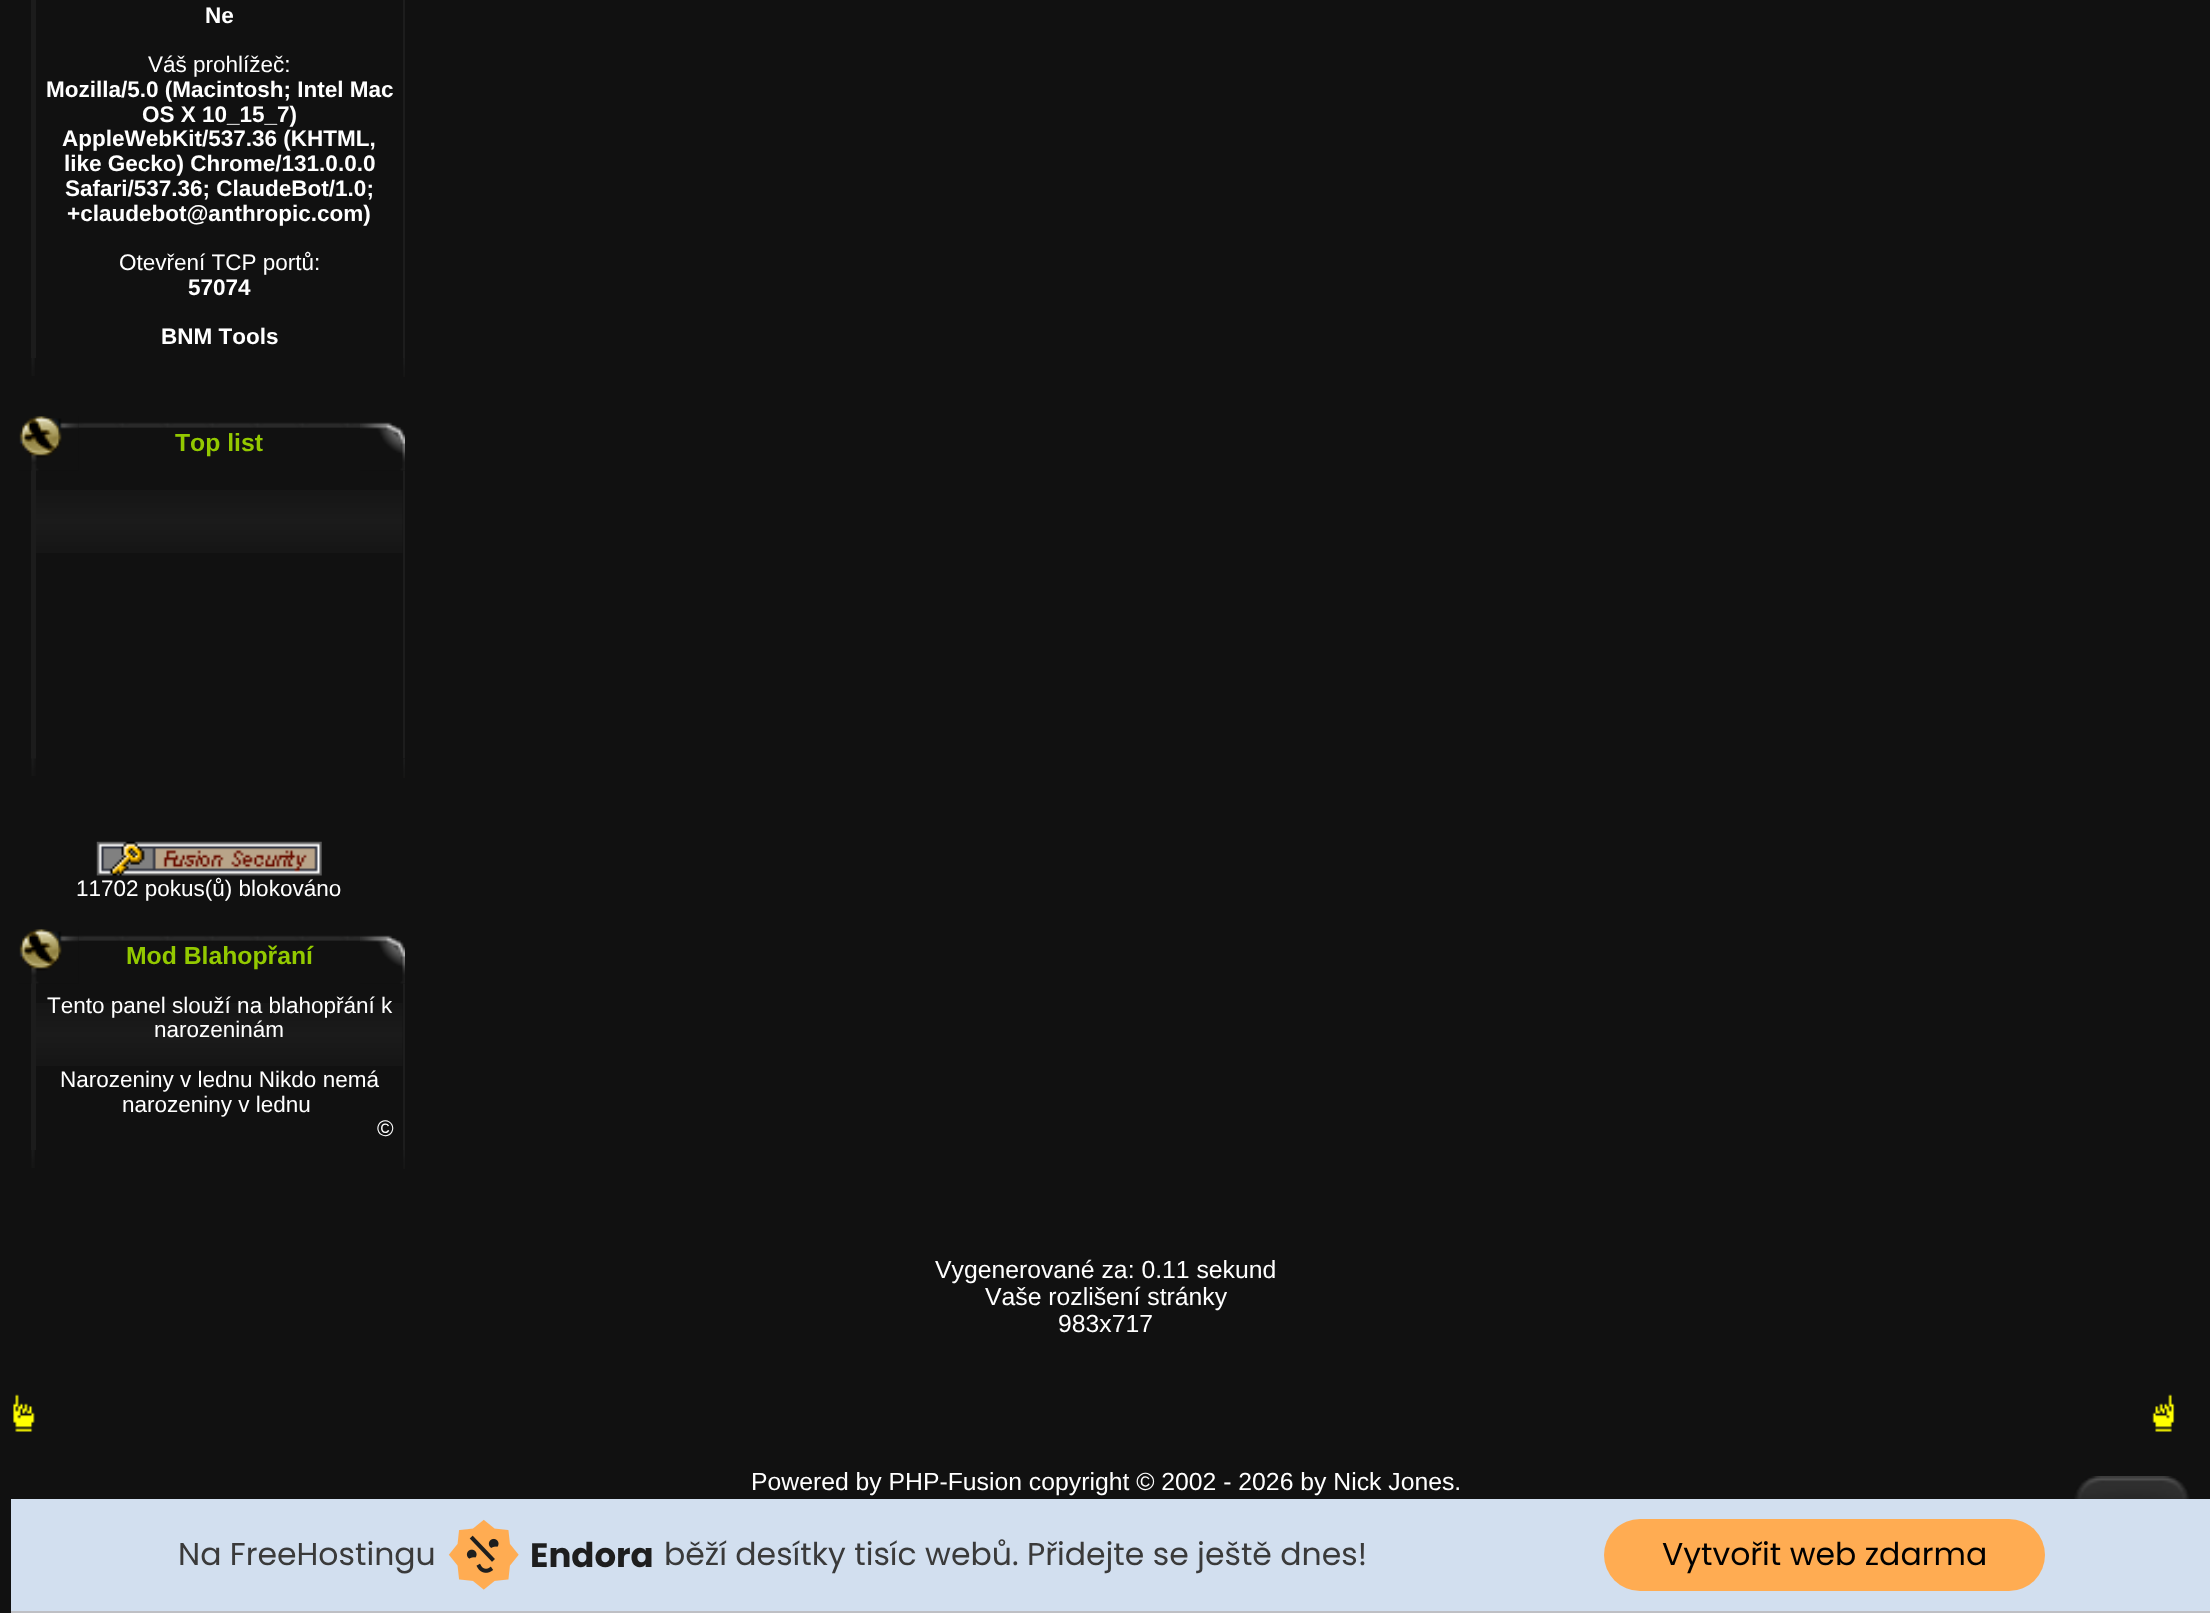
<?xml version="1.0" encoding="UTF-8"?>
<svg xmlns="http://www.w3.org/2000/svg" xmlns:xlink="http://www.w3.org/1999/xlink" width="2210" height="1613">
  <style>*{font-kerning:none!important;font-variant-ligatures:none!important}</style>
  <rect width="100%" height="100%" fill="#111111" />
  <rect x="31" width="5" height="358" fill="#1c1c1c" />
  <rect x="403" width="2" height="358" fill="#1d1d1d" />
  <image x="31" y="358" width="4" height="18" xlink:href="image1.png" />
  <image x="403" y="358" width="2" height="19" xlink:href="image2.png" />
  <image x="78" y="422" width="282" height="6" xlink:href="image4.png" />
  <rect x="31" y="470" width="5" height="289" fill="#1c1c1c" />
  <image x="19" y="416" width="60" height="55" xlink:href="image3.png" />
  <image x="403" y="470" width="2" height="289" xlink:href="image7.png" />
  <image x="360" y="422" width="45" height="49" xlink:href="image5.png" />
  <image x="36" y="490" width="367" height="63" xlink:href="image6.png" />
  <image x="31" y="758" width="5" height="18" xlink:href="image8.png" />
  <image x="403" y="759" width="2" height="19" xlink:href="image9.png" />
  <image x="96" y="841" width="226" height="35" xlink:href="image10.png" />
  <image x="78" y="935" width="282" height="6" xlink:href="image4.png" />
  <rect x="31" y="983" width="5" height="167" fill="#1c1c1c" />
  <image x="19" y="929" width="60" height="55" xlink:href="image11.png" />
  <image x="403" y="983" width="2" height="167" xlink:href="image13.png" />
  <image x="360" y="935" width="45" height="49" xlink:href="image12.png" />
  <image x="36" y="1003" width="367" height="63" xlink:href="image6.png" />
  <image x="31" y="1150" width="4" height="18" xlink:href="image1.png" />
  <image x="403" y="1150" width="2" height="19" xlink:href="image2.png" />
  <image x="13" y="1394" width="22" height="38" xlink:href="image14.png" />
  <image x="2152" y="1394" width="23" height="38" xlink:href="image15.png" />
  <image x="2074" y="1476" width="116" height="23" xlink:href="image16.png" />
  <rect x="11" y="1499" width="2199" height="112" fill="#d2dfef" />
  <rect x="11" y="1611" width="2199" height="2" fill="#bebfc4" />
  <image x="448" y="1519" width="71" height="71" xlink:href="image17.png" />
  <rect x="1604" y="1519" width="441" height="72" rx="36" fill="#ffac52" />
  <text x="205" y="23" style="font-family: Liberation Sans; font-size: 22.5px; font-weight: bold; fill: #ffffff">Ne</text>
  <text x="148" y="72" style="font-family: Liberation Sans; font-size: 22.5px; fill: #ffffff">Váš prohlížeč:</text>
  <text x="46" y="97" style="font-family: Liberation Sans; font-size: 22.5px; font-weight: bold; fill: #ffffff">Mozilla/5.0 (Macintosh; Intel Mac</text>
  <text x="142" y="122" style="font-family: Liberation Sans; font-size: 22.5px; font-weight: bold; fill: #ffffff">OS X 10_15_7)</text>
  <text x="62" y="146" style="font-family: Liberation Sans; font-size: 22.5px; font-weight: bold; fill: #ffffff">AppleWebKit/537.36 (KHTML,</text>
  <text x="64" y="171" style="font-family: Liberation Sans; font-size: 22.5px; font-weight: bold; fill: #ffffff">like Gecko) Chrome/131.0.0.0</text>
  <text x="65" y="196" style="font-family: Liberation Sans; font-size: 22.5px; font-weight: bold; fill: #ffffff">Safari/537.36; ClaudeBot/1.0;</text>
  <text x="67" y="221" style="font-family: Liberation Sans; font-size: 22.5px; font-weight: bold; fill: #ffffff">+claudebot@anthropic.com)</text>
  <text x="119" y="270" style="font-family: Liberation Sans; font-size: 22.5px; fill: #ffffff">Otevření TCP portů:</text>
  <text x="188" y="295" style="font-family: Liberation Sans; font-size: 22.5px; font-weight: bold; fill: #ffffff">57074</text>
  <text x="161" y="344" style="font-family: Liberation Sans; font-size: 22.5px; font-weight: bold; fill: #ffffff">BNM Tools</text>
  <text x="175" y="451" style="font-family: Liberation Sans; font-size: 24.75px; font-weight: bold; fill: #93c900">Top list</text>
  <text x="76" y="896" style="font-family: Liberation Sans; font-size: 22.5px; fill: #ffffff">11702 pokus(ů) blokováno</text>
  <text x="126" y="964" style="font-family: Liberation Sans; font-size: 24.75px; font-weight: bold; fill: #93c900">Mod Blahopřaní</text>
  <text x="47" y="1013" style="font-family: Liberation Sans; font-size: 22.5px; fill: #ffffff">Tento panel slouží na blahopřání k</text>
  <text x="154" y="1037" style="font-family: Liberation Sans; font-size: 22.5px; fill: #ffffff">narozeninám</text>
  <text x="60" y="1087" style="font-family: Liberation Sans; font-size: 22.5px; fill: #ffffff">Narozeniny v lednu Nikdo nemá</text>
  <text x="122" y="1112" style="font-family: Liberation Sans; font-size: 22.5px; fill: #ffffff">narozeniny v lednu </text>
  <text x="377" y="1136" style="font-family: Liberation Sans; font-size: 22.5px; fill: #ffffff">©</text>
  <text x="935" y="1278" style="font-family: Liberation Sans; font-size: 24.75px; fill: #ffffff">Vygenerované za: 0.11 sekund</text>
  <text x="985" y="1305" style="font-family: Liberation Sans; font-size: 24.75px; fill: #ffffff">Vaše rozlišení stránky</text>
  <text x="1058" y="1332" style="font-family: Liberation Sans; font-size: 24.75px; fill: #ffffff">983x717</text>
  <text x="751" y="1490" style="font-family: Liberation Sans; font-size: 24.75px; fill: #ffffff">Powered by PHP-Fusion copyright © 2002 - 2026 by Nick Jones.</text>
  <text x="178" y="1565" style="font-family: Poppins; font-size: 31.5px; fill: #3a3a3a">Na FreeHostingu</text>
  <text x="530" y="1567" style="font-family: Poppins; font-size: 34px; font-weight: bold; fill: #1e1e1e">Endora</text>
  <text x="664" y="1565" style="font-family: Poppins; font-size: 31.5px; fill: #3a3a3a">běží desítky tisíc webů. Přidejte se ještě dnes!</text>
  <text x="1662" y="1565" style="font-family: Poppins; font-size: 31.5px; fill: #000000">Vytvořit web zdarma</text>
</svg>
